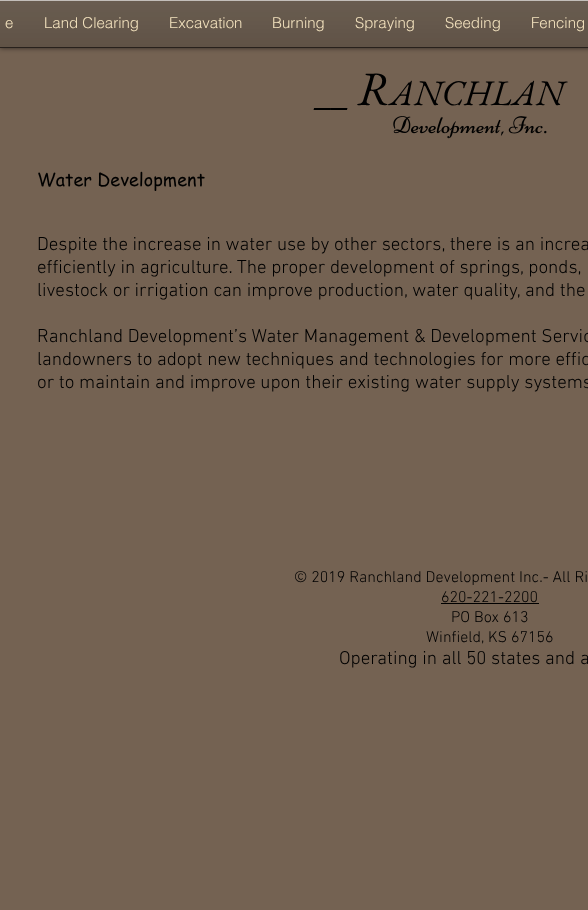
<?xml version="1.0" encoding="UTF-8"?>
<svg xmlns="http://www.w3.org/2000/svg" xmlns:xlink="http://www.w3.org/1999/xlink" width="588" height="910">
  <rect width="100%" height="100%" fill="#746252" />
  <rect width="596" height="48" fill="#000000" fill-opacity="0.6" filter="blur(2.5px)" />
  <rect y="1" width="588" height="46" fill="#362515" />
  <image x="0" y="1" width="588" height="46" xlink:href="image1.png" />
  <rect y="47" width="588" height="1" fill="#27211c" />
  <rect width="588" height="1" fill="#c3beba" />
  <image x="393" y="116" width="154" height="23" xlink:href="image2.png" />
  <rect x="441" y="603" width="98" height="1" fill="#000000" />
  <text x="5" y="28" style="font-family: helvetica; font-size: 15px; font-weight: 300; fill: #f3e2be">e</text>
  <text x="44" y="28" style="font-family: helvetica; font-size: 15px; font-weight: 300; fill: #f3e2be">Land Clearing</text>
  <text x="169" y="28" style="font-family: helvetica; font-size: 15px; font-weight: 300; fill: #f3e2be">Excavation</text>
  <text x="272" y="28" style="font-family: helvetica; font-size: 15px; font-weight: 300; fill: #f3e2be">Burning</text>
  <text x="355" y="28" style="font-family: helvetica; font-size: 15px; font-weight: 300; fill: #f3e2be">Spraying</text>
  <text x="445" y="28" style="font-family: helvetica; font-size: 15px; font-weight: 300; fill: #f3e2be">Seeding</text>
  <text x="531" y="28" style="font-family: helvetica; font-size: 15px; font-weight: 300; fill: #f3e2be">Fencing</text>
  <text x="357" y="105" style="font-family: EB Garamond; font-size: 48px; font-style: italic; fill: #000000">R</text>
  <text x="390" y="105" style="font-family: EB Garamond; font-size: 36px; font-style: italic; fill: #000000">ANCHLAN</text>
  <text x="315" y="105" style="font-family: 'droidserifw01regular'; font-size: 36px; font-style: italic; fill: #000000">__</text>
  <text x="37" y="186" style="font-family: 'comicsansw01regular'; font-size: 18px; fill: #000000">Water Development</text>
  <text x="37" y="250" style="font-family: 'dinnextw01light'; font-size: 19px; font-weight: 300; fill: #000000">Despite the increase in water use by other sectors, there is an increa</text>
  <text x="37" y="273" style="font-family: 'dinnextw01light'; font-size: 19px; font-weight: 300; fill: #000000">efficiently in agriculture. The proper development of springs, ponds,</text>
  <text x="37" y="296" style="font-family: 'dinnextw01light'; font-size: 19px; font-weight: 300; fill: #000000">livestock or irrigation can improve production, water quality, and the</text>
  <text x="37" y="342" style="font-family: 'dinnextw01light'; font-size: 19px; font-weight: 300; fill: #000000">Ranchland Development’s Water Management &amp; Development Servic</text>
  <text x="37" y="365" style="font-family: 'dinnextw01light'; font-size: 19px; font-weight: 300; fill: #000000">landowners to adopt new techniques and technologies for more effic</text>
  <text x="37" y="388" style="font-family: 'dinnextw01light'; font-size: 19px; font-weight: 300; fill: #000000">or to maintain and improve upon their existing water supply systems</text>
  <text x="294" y="582" style="font-family: 'dinnextw01light'; font-size: 16px; font-weight: 300; fill: #000000">© 2019 Ranchland Development Inc.- All Ri</text>
  <text x="441" y="602" style="font-family: 'dinnextw01light'; font-size: 16px; font-weight: 300; fill: #000000">620-221-2200</text>
  <text x="451" y="622" style="font-family: 'dinnextw01light'; font-size: 16px; font-weight: 300; fill: #000000">PO Box 613</text>
  <text x="426" y="642" style="font-family: 'dinnextw01light'; font-size: 16px; font-weight: 300; fill: #000000">Winfield, KS 67156</text>
  <text x="339" y="664" style="font-family: 'dinnextw01light'; font-size: 19px; font-weight: 300; fill: #000000">Operating in all 50 states and a</text>
</svg>
